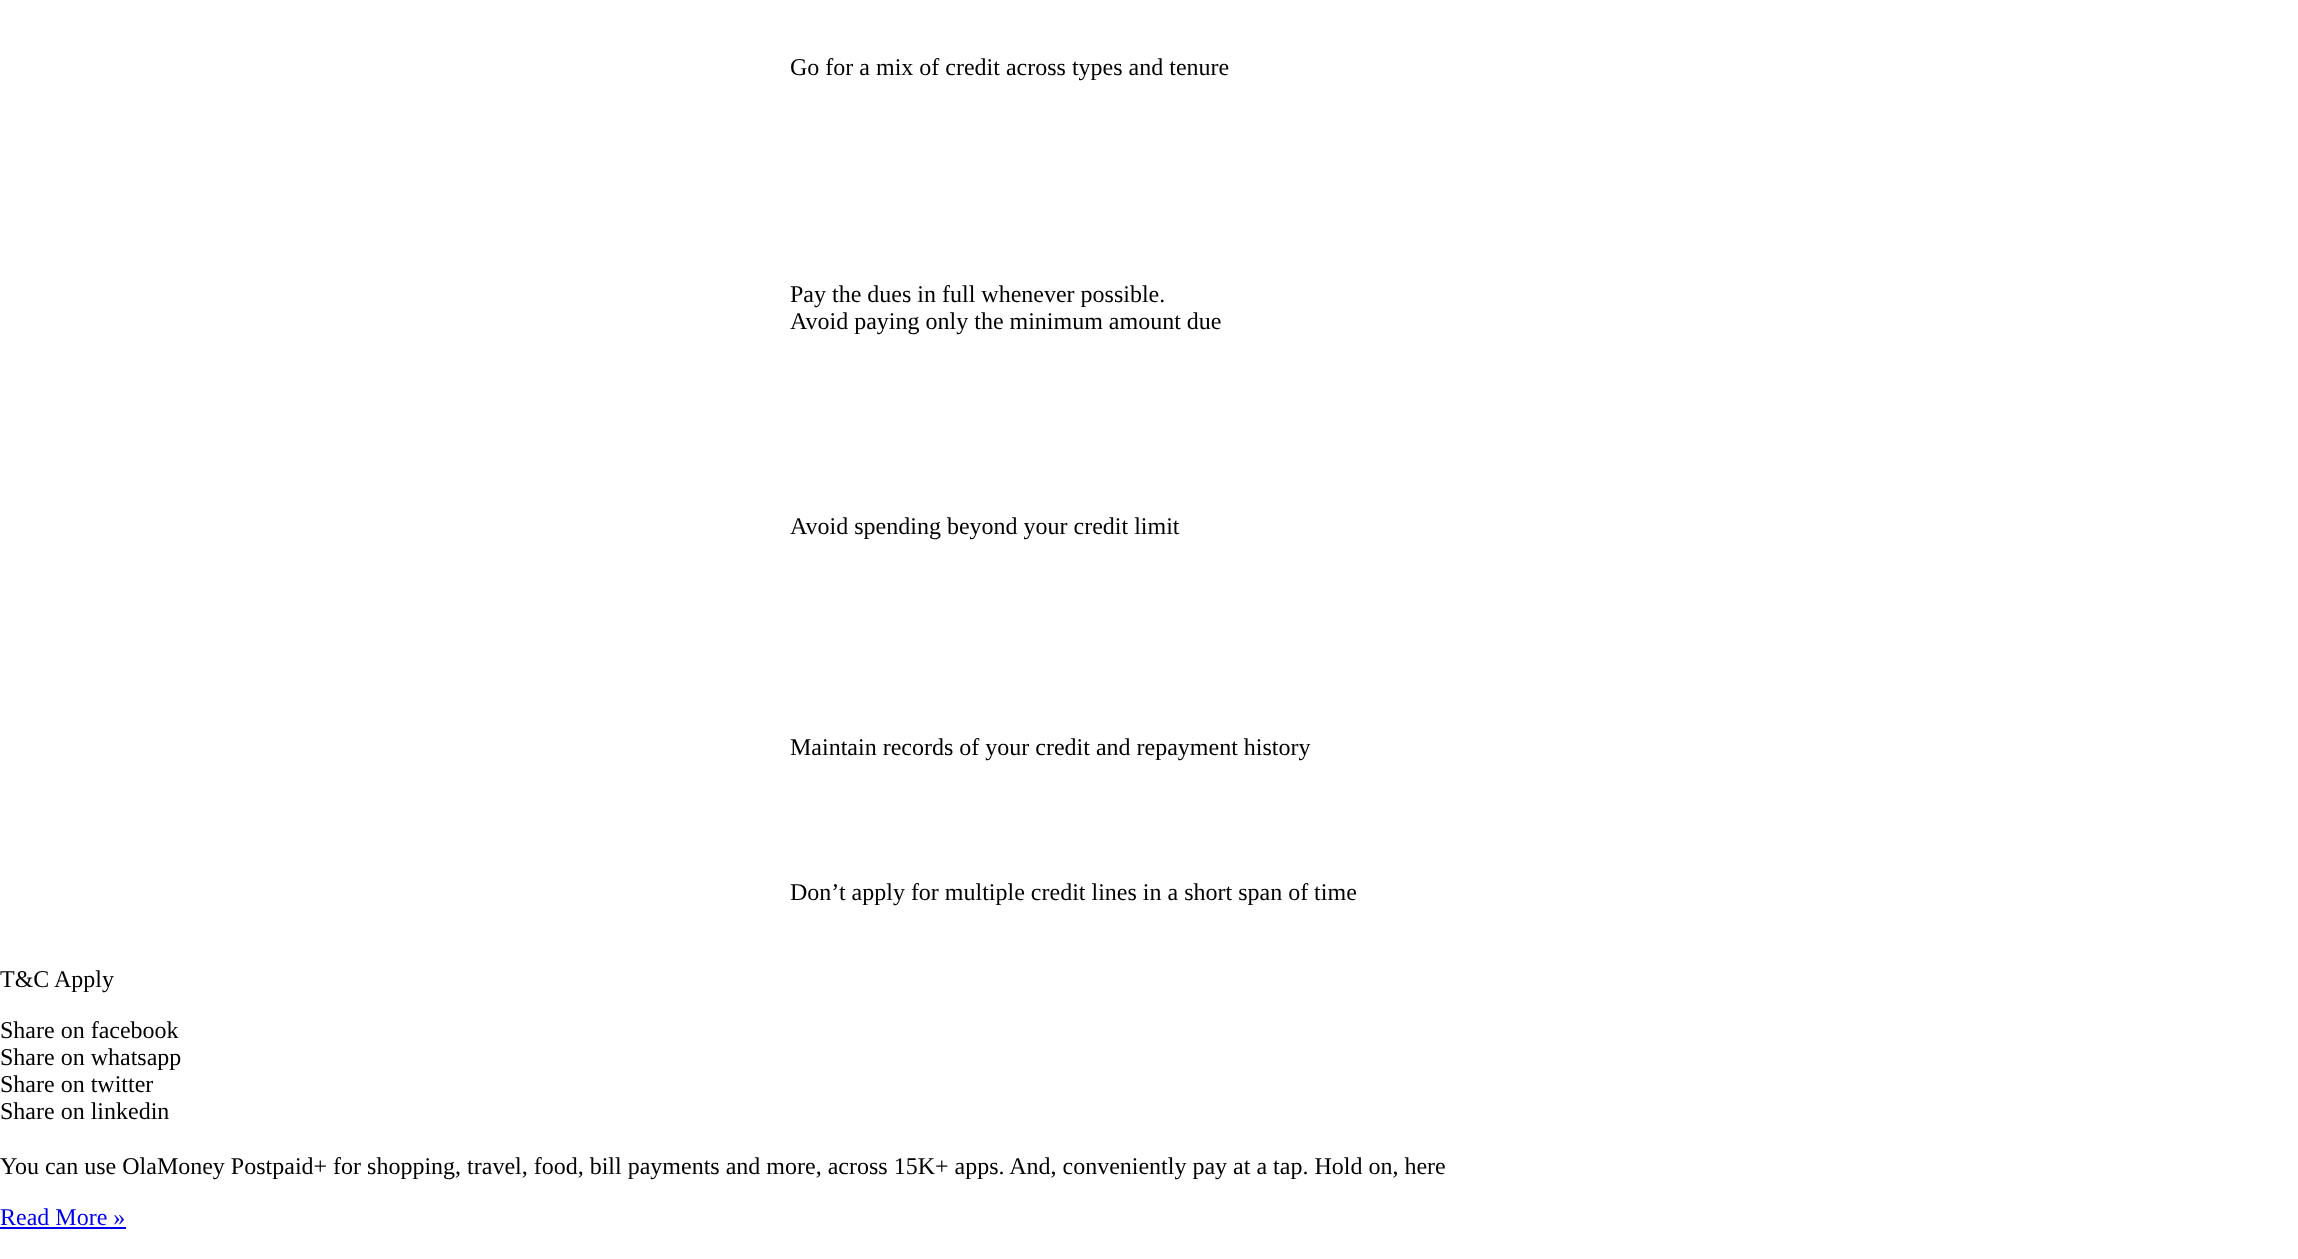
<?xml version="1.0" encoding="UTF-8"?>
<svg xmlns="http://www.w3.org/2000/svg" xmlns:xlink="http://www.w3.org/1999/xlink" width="2298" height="1259">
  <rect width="100%" height="100%" fill="#ffffff" />
  <rect y="1227" width="126" height="2" fill="#0000ee" />
  <text x="790" y="75" style="font-family: Liberation Serif; font-size: 24px; fill: #000000">Go for a mix of credit across types and tenure</text>
  <text x="790" y="302" style="font-family: Liberation Serif; font-size: 24px; fill: #000000">Pay the dues in full whenever possible.</text>
  <text x="790" y="329" style="font-family: Liberation Serif; font-size: 24px; fill: #000000">Avoid paying only the minimum amount due</text>
  <text x="790" y="534" style="font-family: Liberation Serif; font-size: 24px; fill: #000000">Avoid spending beyond your credit limit</text>
  <text x="790" y="755" style="font-family: Liberation Serif; font-size: 24px; fill: #000000">Maintain records of your credit and repayment history</text>
  <text x="790" y="900" style="font-family: Liberation Serif; font-size: 24px; fill: #000000">Don’t apply for multiple credit lines in a short span of time</text>
  <text x="0" y="987" style="font-family: Liberation Serif; font-size: 24px; fill: #000000">T&amp;C Apply</text>
  <text x="0" y="1038" style="font-family: Liberation Serif; font-size: 24px; fill: #000000">Share on facebook</text>
  <text x="0" y="1065" style="font-family: Liberation Serif; font-size: 24px; fill: #000000">Share on whatsapp</text>
  <text x="0" y="1092" style="font-family: Liberation Serif; font-size: 24px; fill: #000000">Share on twitter</text>
  <text x="0" y="1119" style="font-family: Liberation Serif; font-size: 24px; fill: #000000">Share on linkedin</text>
  <text x="0" y="1174" style="font-family: Liberation Serif; font-size: 24px; fill: #000000">You can use OlaMoney Postpaid+ for shopping, travel, food, bill payments and more, across 15K+ apps. And, conveniently pay at a tap. Hold on, here</text>
  <text x="0" y="1225" style="font-family: Liberation Serif; font-size: 24px; fill: #0000ee">Read More »</text>
</svg>
